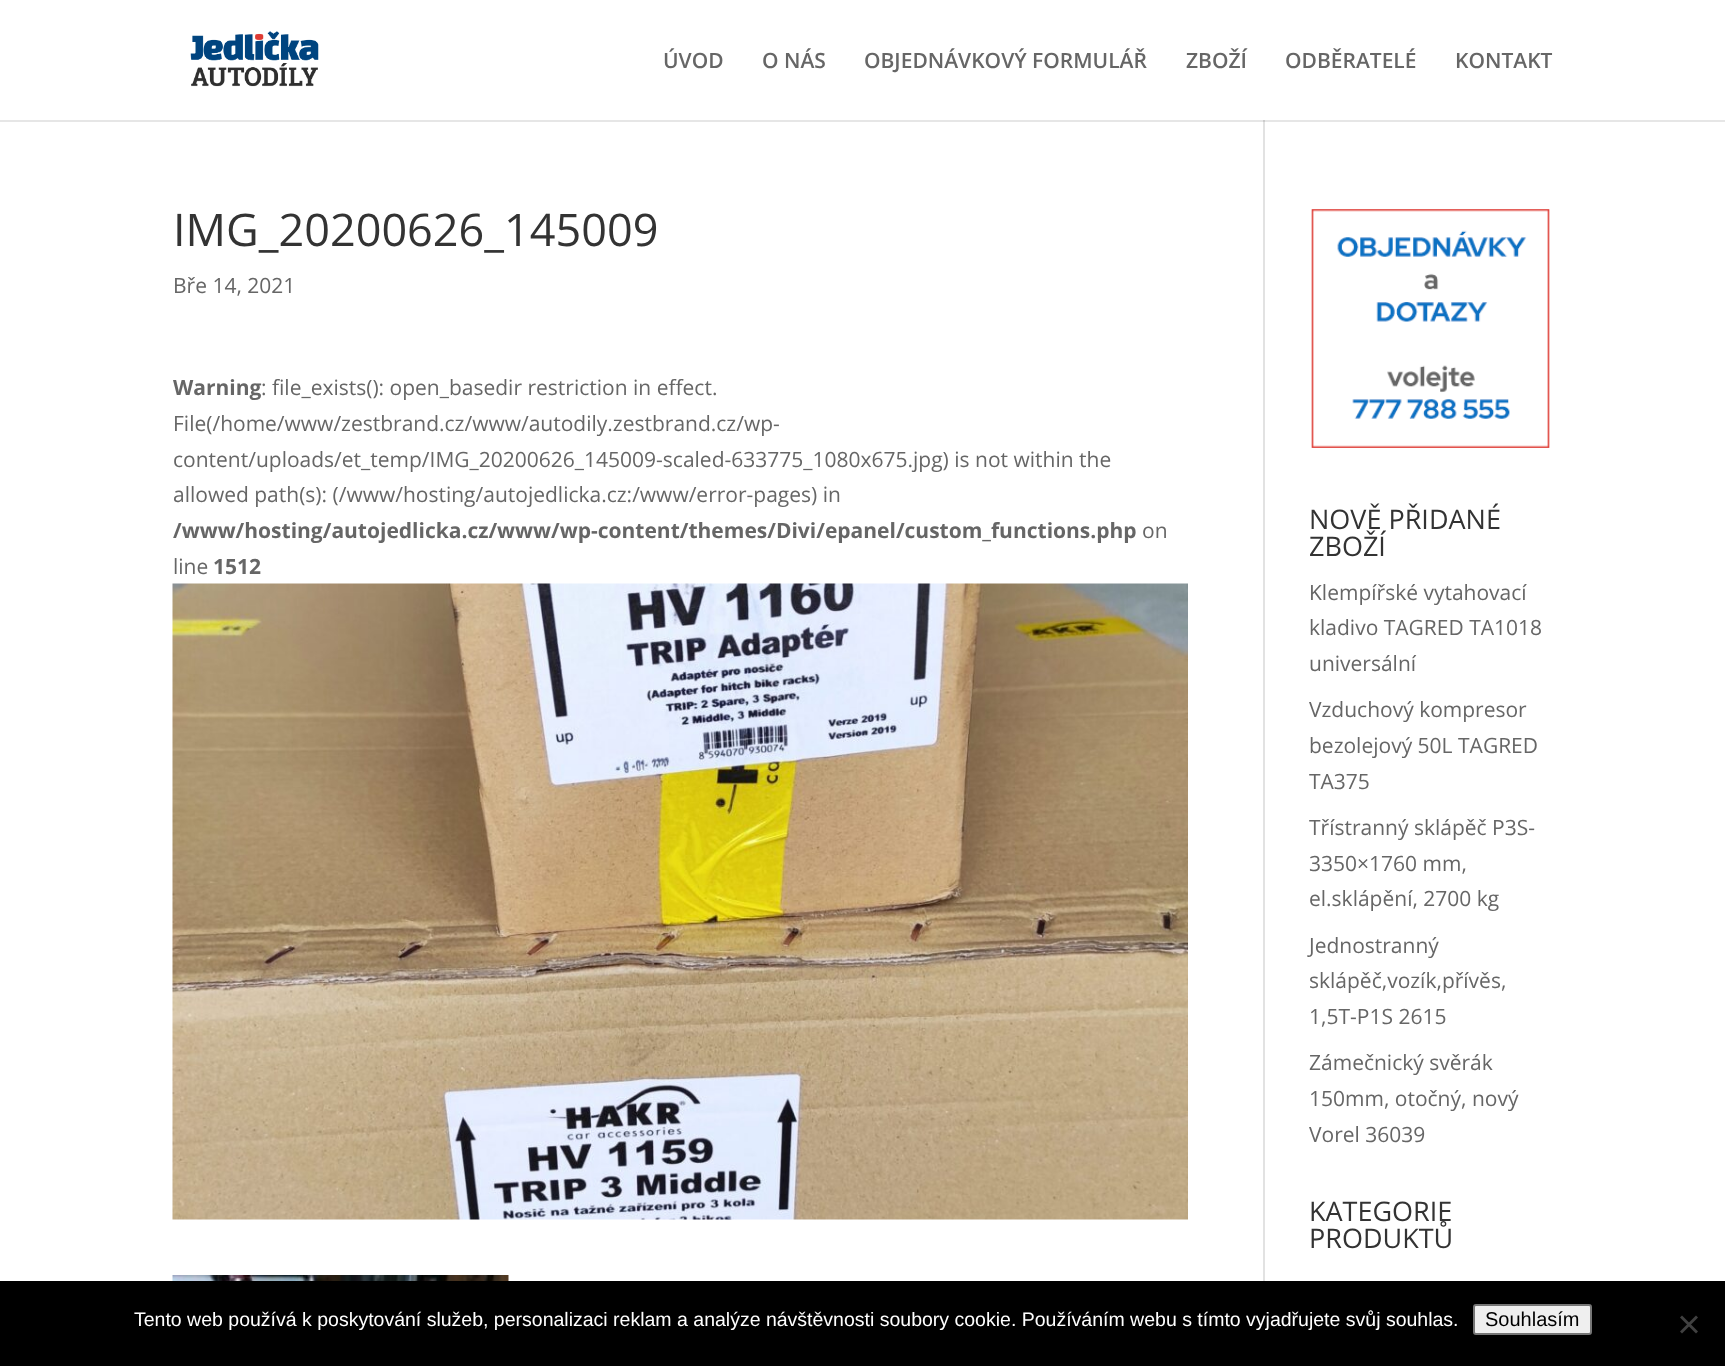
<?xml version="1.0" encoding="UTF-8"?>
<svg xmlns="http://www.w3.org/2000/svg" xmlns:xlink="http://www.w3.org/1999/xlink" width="1725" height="1366">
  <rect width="100%" height="100%" fill="#ffffff" />
  <rect y="120" width="1725" height="2" fill="#e6e6e6" />
  <image x="190" y="31" width="129" height="56" xlink:href="image1.png" />
  <rect x="1263" y="120" width="2" height="1161" fill="#e2e2e2" />
  <rect x="1263" y="120" width="2" height="2" fill="#cbcbcb" />
  <image x="172" y="583" width="1016" height="637" xlink:href="image2.png" />
  <image x="172" y="1275" width="337" height="6" xlink:href="image3.png" />
  <image x="1311" y="209" width="239" height="239" xlink:href="image4.png" />
  <rect y="1281" width="1725" height="85" fill="#000000" />
  <rect x="1474" y="1305" width="117" height="29" rx="2" fill="#efefef" stroke="#767676" stroke-width="2" />
  <path d="M 1696 1315.5 l 2 2 l -16 16 l -2 -2 z" fill="#404040" />
  <path d="M 1680 1317.5 l 2 -2 l 16 16 l -2 2 z" fill="#404040" />
  <text x="663" y="68" style="font-family: Open Sans; font-size: 21px; font-weight: 600; fill: #666666">ÚVOD</text>
  <text x="762" y="68" style="font-family: Open Sans; font-size: 21px; font-weight: 600; fill: #666666">O NÁS</text>
  <text x="864" y="68" style="font-family: Open Sans; font-size: 21px; font-weight: 600; fill: #666666">OBJEDNÁVKOVÝ FORMULÁŘ</text>
  <text x="1186" y="68" style="font-family: Open Sans; font-size: 21px; font-weight: 600; fill: #666666">ZBOŽÍ</text>
  <text x="1285" y="68" style="font-family: Open Sans; font-size: 21px; font-weight: 600; fill: #666666">ODBĚRATELÉ</text>
  <text x="1455" y="68" style="font-family: Open Sans; font-size: 21px; font-weight: 600; fill: #666666">KONTAKT</text>
  <text x="173" y="246" style="font-family: Open Sans; font-size: 45px; fill: #333333">IMG_20200626_145009</text>
  <text x="173" y="293" style="font-family: Open Sans; font-size: 21px; fill: #666666">Bře 14, 2021</text>
  <text x="173" y="395" style="font-family: Open Sans; font-size: 21px; font-weight: bold; fill: #666666">Warning</text>
  <text x="261" y="395" style="font-family: Open Sans; font-size: 21px; fill: #666666">: file_exists(): open_basedir restriction in effect.</text>
  <text x="173" y="431" style="font-family: Open Sans; font-size: 21px; fill: #666666">File(/home/www/zestbrand.cz/www/autodily.zestbrand.cz/wp-</text>
  <text x="173" y="467" style="font-family: Open Sans; font-size: 21px; fill: #666666">content/uploads/et_temp/IMG_20200626_145009-scaled-633775_1080x675.jpg) is not within the</text>
  <text x="173" y="502" style="font-family: Open Sans; font-size: 21px; fill: #666666">allowed path(s): (/www/hosting/autojedlicka.cz:/www/error-pages) in</text>
  <text x="173" y="538" style="font-family: Open Sans; font-size: 21px; font-weight: bold; fill: #666666">/www/hosting/autojedlicka.cz/www/wp-content/themes/Divi/epanel/custom_functions.php</text>
  <text x="1142" y="538" style="font-family: Open Sans; font-size: 21px; fill: #666666">on</text>
  <text x="173" y="574" style="font-family: Open Sans; font-size: 21px; fill: #666666">line</text>
  <text x="213" y="574" style="font-family: Open Sans; font-size: 21px; font-weight: bold; fill: #666666">1512</text>
  <text x="1309" y="529" style="font-family: Open Sans; font-size: 27px; fill: #333333">NOVĚ PŘIDANÉ</text>
  <text x="1309" y="556" style="font-family: Open Sans; font-size: 27px; fill: #333333">ZBOŽÍ</text>
  <text x="1309" y="600" style="font-family: Open Sans; font-size: 21px; fill: #666666">Klempířské vytahovací</text>
  <text x="1309" y="635" style="font-family: Open Sans; font-size: 21px; fill: #666666">kladivo TAGRED TA1018</text>
  <text x="1309" y="671" style="font-family: Open Sans; font-size: 21px; fill: #666666">universální</text>
  <text x="1309" y="717" style="font-family: Open Sans; font-size: 21px; fill: #666666">Vzduchový kompresor</text>
  <text x="1309" y="753" style="font-family: Open Sans; font-size: 21px; fill: #666666">bezolejový 50L TAGRED</text>
  <text x="1309" y="789" style="font-family: Open Sans; font-size: 21px; fill: #666666">TA375</text>
  <text x="1309" y="835" style="font-family: Open Sans; font-size: 21px; fill: #666666">Třístranný sklápěč P3S-</text>
  <text x="1309" y="871" style="font-family: Open Sans; font-size: 21px; fill: #666666">3350×1760 mm,</text>
  <text x="1309" y="906" style="font-family: Open Sans; font-size: 21px; fill: #666666">el.sklápění, 2700 kg</text>
  <text x="1309" y="953" style="font-family: Open Sans; font-size: 21px; fill: #666666">Jednostranný</text>
  <text x="1309" y="988" style="font-family: Open Sans; font-size: 21px; fill: #666666">sklápěč,vozík,přívěs,</text>
  <text x="1309" y="1024" style="font-family: Open Sans; font-size: 21px; fill: #666666">1,5T-P1S 2615</text>
  <text x="1309" y="1070" style="font-family: Open Sans; font-size: 21px; fill: #666666">Zámečnický svěrák</text>
  <text x="1309" y="1106" style="font-family: Open Sans; font-size: 21px; fill: #666666">150mm, otočný, nový</text>
  <text x="1309" y="1142" style="font-family: Open Sans; font-size: 21px; fill: #666666">Vorel 36039</text>
  <text x="1309" y="1221" style="font-family: Open Sans; font-size: 27px; fill: #333333">KATEGORIE</text>
  <text x="1309" y="1248" style="font-family: Open Sans; font-size: 27px; fill: #333333">PRODUKTŮ</text>
  <text x="134" y="1326" style="font-family: Liberation Sans; font-size: 19.5px; fill: #ffffff">Tento web používá k poskytování služeb, personalizaci reklam a analýze návštěvnosti soubory cookie. Používáním webu s tímto vyjadřujete svůj souhlas.</text>
  <text x="1485" y="1326" style="font-family: Liberation Sans; font-size: 20px; fill: #000000">Souhlasím</text>
</svg>
